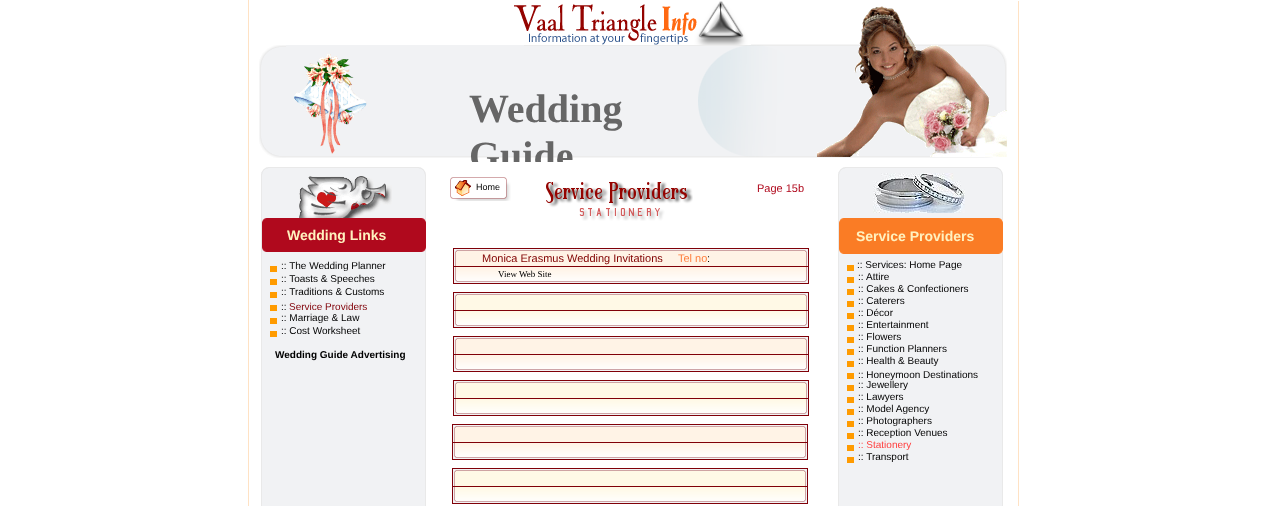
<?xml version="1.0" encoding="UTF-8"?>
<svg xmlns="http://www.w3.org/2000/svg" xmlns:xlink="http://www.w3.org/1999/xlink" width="1267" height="506">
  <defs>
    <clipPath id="clip1"><rect x="469" y="85" width="205" height="77" /></clipPath>
  </defs>
  <rect width="100%" height="100%" fill="#ffffff" />
  <image x="524" y="44" width="483" height="114" xlink:href="image5.png" />
  <image x="514" y="1" width="237" height="44" xlink:href="image1.png" />
  <image x="817" y="6" width="190" height="151" xlink:href="image2.png" />
  <image x="259" y="45" width="27" height="113" xlink:href="image3.png" />
  <image x="286" y="45" width="238" height="113" xlink:href="image4.png" />
  <image x="294" y="53" width="73" height="101" xlink:href="image6.png" />
  <rect x="248" width="1" height="506" fill="#ffe2c4" />
  <image x="261" y="167" width="165" height="339" xlink:href="image7.png" />
  <image x="838" y="167" width="165" height="339" xlink:href="image7.png" />
  <rect x="1018" y="1" width="1" height="505" fill="#ffe2c4" />
  <image x="297" y="176" width="95" height="42" xlink:href="image8.png" />
  <image x="450" y="177" width="61" height="24" xlink:href="image9.png" />
  <image x="873" y="173" width="92" height="40" xlink:href="image10.png" />
  <image x="455" y="180" width="16" height="16" xlink:href="image11.png" />
  <image x="262" y="218" width="164" height="34" xlink:href="image12.png" />
  <image x="839" y="218" width="164" height="36" xlink:href="image13.png" />
  <rect x="453" y="248" width="356" height="36" fill="#800008" />
  <image x="454" y="249" width="354" height="34" xlink:href="image14.png" />
  <rect x="453" y="266" width="356" height="1" fill="#800008" />
  <rect x="453" y="292" width="356" height="36" fill="#800008" />
  <image x="454" y="293" width="354" height="34" xlink:href="image15.png" />
  <rect x="453" y="310" width="356" height="1" fill="#800008" />
  <rect x="453" y="336" width="356" height="36" fill="#800008" />
  <image x="454" y="337" width="354" height="34" xlink:href="image14.png" />
  <rect x="453" y="354" width="356" height="1" fill="#800008" />
  <rect x="453" y="380" width="356" height="36" fill="#800008" />
  <image x="454" y="381" width="354" height="34" xlink:href="image15.png" />
  <rect x="453" y="398" width="356" height="1" fill="#800008" />
  <rect x="452" y="424" width="356" height="36" fill="#800008" />
  <image x="453" y="425" width="354" height="34" xlink:href="image14.png" />
  <rect x="452" y="442" width="356" height="1" fill="#800008" />
  <rect x="452" y="468" width="356" height="36" fill="#800008" />
  <image x="453" y="469" width="354" height="34" xlink:href="image15.png" />
  <rect x="452" y="486" width="356" height="1" fill="#800008" />
  <image x="546" y="181" width="147" height="40" xlink:href="image16.png" />
  <rect x="270" y="266" width="7" height="6" fill="#ff9b00" />
  <rect x="847" y="265" width="7" height="6" fill="#ff9b00" />
  <rect x="270" y="279" width="7" height="6" fill="#ff9b00" />
  <rect x="847" y="277" width="7" height="6" fill="#ff9b00" />
  <rect x="270" y="292" width="7" height="6" fill="#ff9b00" />
  <rect x="847" y="289" width="7" height="6" fill="#ff9b00" />
  <rect x="270" y="305" width="7" height="6" fill="#ff9b00" />
  <rect x="847" y="301" width="7" height="6" fill="#ff9b00" />
  <rect x="847" y="313" width="7" height="6" fill="#ff9b00" />
  <rect x="270" y="318" width="7" height="6" fill="#ff9b00" />
  <rect x="847" y="325" width="7" height="6" fill="#ff9b00" />
  <rect x="270" y="331" width="7" height="6" fill="#ff9b00" />
  <rect x="847" y="337" width="7" height="6" fill="#ff9b00" />
  <rect x="847" y="349" width="7" height="6" fill="#ff9b00" />
  <rect x="847" y="361" width="7" height="6" fill="#ff9b00" />
  <rect x="847" y="373" width="7" height="6" fill="#ff9b00" />
  <rect x="847" y="385" width="7" height="6" fill="#ff9b00" />
  <rect x="847" y="397" width="7" height="6" fill="#ff9b00" />
  <rect x="847" y="409" width="7" height="6" fill="#ff9b00" />
  <rect x="847" y="421" width="7" height="6" fill="#ff9b00" />
  <rect x="847" y="433" width="7" height="6" fill="#ff9b00" />
  <rect x="847" y="445" width="7" height="6" fill="#ff9b00" />
  <rect x="847" y="457" width="7" height="6" fill="#ff9b00" />
  <text x="469" y="122" style="font-family: Liberation Serif; font-size: 40px; font-weight: bold; fill: #666666">Wedding</text>
  <g clip-path="url(#clip1)">
    <text x="469" y="169" style="font-family: Liberation Serif; font-size: 40px; font-weight: bold; fill: #666666">Guide</text>
  </g>
  <text x="275" y="358" style="font-family: Liberation Sans; font-size: 10px; font-weight: bold; fill: #000000">Wedding Guide Advertising</text>
  <text x="476" y="190" style="font-family: Liberation Sans; font-size: 9px; fill: #000000">Home</text>
  <text x="287" y="240" style="font-family: Liberation Sans; font-size: 14px; font-weight: bold; fill: #fff1bf">Wedding Links</text>
  <text x="856" y="241" style="font-family: Liberation Sans; font-size: 14px; font-weight: bold; fill: #fff1bf">Service Providers</text>
  <text x="757" y="192" style="font-family: Liberation Sans; font-size: 11px; fill: #b0091d">Page 15b</text>
  <text x="482" y="262" style="font-family: Liberation Sans; font-size: 11px; fill: #800000">Monica Erasmus Wedding Invitations</text>
  <text x="678" y="262" style="font-family: Liberation Sans; font-size: 11px; fill: #ff8040">Tel no</text>
  <text x="707" y="262" style="font-family: Liberation Sans; font-size: 11px; fill: #000000">:</text>
  <text x="281" y="269" style="font-family: Liberation Sans; font-size: 10px; fill: #000000">:: The Wedding Planner</text>
  <text x="857" y="268" style="font-family: Liberation Sans; font-size: 10px; fill: #000000">:: Services: Home Page</text>
  <text x="281" y="282" style="font-family: Liberation Sans; font-size: 10px; fill: #000000">:: Toasts &amp; Speeches</text>
  <text x="498" y="277" style="font-family: Liberation Serif; font-size: 9px; fill: #000000">View Web Site</text>
  <text x="858" y="280" style="font-family: Liberation Sans; font-size: 10px; fill: #000000">::</text>
  <text x="866" y="280" style="font-family: Liberation Sans; font-size: 10px; fill: #000000">Attire</text>
  <text x="281" y="295" style="font-family: Liberation Sans; font-size: 10px; fill: #000000">:: Traditions &amp; Customs</text>
  <text x="858" y="292" style="font-family: Liberation Sans; font-size: 10px; fill: #000000">:: Cakes &amp; Confectioners</text>
  <text x="281" y="310" style="font-family: Liberation Sans; font-size: 10px; fill: #000000">::</text>
  <text x="289" y="310" style="font-family: Liberation Sans; font-size: 10px; fill: #800008">Service Providers</text>
  <text x="858" y="304" style="font-family: Liberation Sans; font-size: 10px; fill: #000000">:: Caterers</text>
  <text x="281" y="321" style="font-family: Liberation Sans; font-size: 10px; fill: #000000">:: Marriage &amp; Law</text>
  <text x="858" y="316" style="font-family: Liberation Sans; font-size: 10px; fill: #000000">:: Décor</text>
  <text x="281" y="334" style="font-family: Liberation Sans; font-size: 10px; fill: #000000">:: Cost Worksheet</text>
  <text x="858" y="328" style="font-family: Liberation Sans; font-size: 10px; fill: #000000">:: Entertainment</text>
  <text x="858" y="340" style="font-family: Liberation Sans; font-size: 10px; fill: #000000">:: Flowers</text>
  <text x="858" y="352" style="font-family: Liberation Sans; font-size: 10px; fill: #000000">:: Function Planners</text>
  <text x="858" y="364" style="font-family: Liberation Sans; font-size: 10px; fill: #000000">:: Health &amp; Beauty</text>
  <text x="858" y="378" style="font-family: Liberation Sans; font-size: 10px; fill: #000000">:: Honeymoon Destinations</text>
  <text x="858" y="388" style="font-family: Liberation Sans; font-size: 10px; fill: #000000">:: Jewellery</text>
  <text x="858" y="400" style="font-family: Liberation Sans; font-size: 10px; fill: #000000">:: Lawyers</text>
  <text x="858" y="412" style="font-family: Liberation Sans; font-size: 10px; fill: #000000">:: Model Agency</text>
  <text x="858" y="424" style="font-family: Liberation Sans; font-size: 10px; fill: #000000">:: Photographers</text>
  <text x="858" y="436" style="font-family: Liberation Sans; font-size: 10px; fill: #000000">:: Reception Venues</text>
  <text x="858" y="448" style="font-family: Liberation Sans; font-size: 10px; fill: #ff4040">:: Stationery</text>
  <text x="858" y="460" style="font-family: Liberation Sans; font-size: 10px; fill: #000000">:: Transport</text>
</svg>
